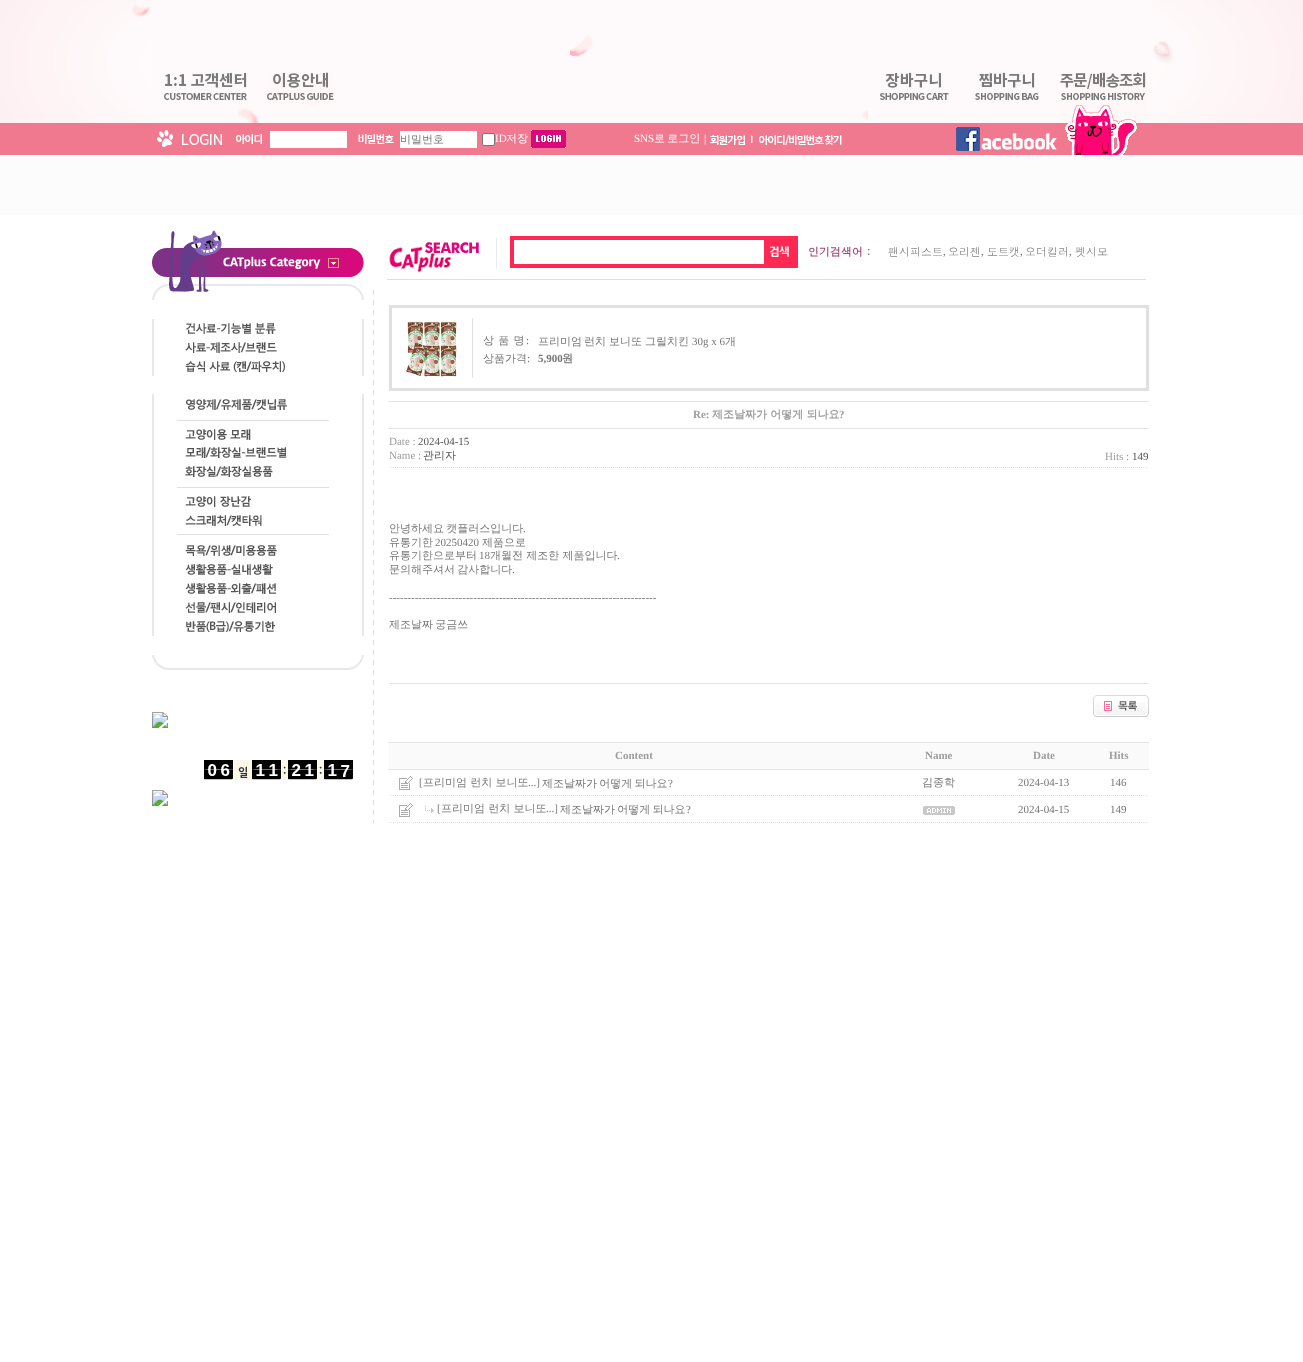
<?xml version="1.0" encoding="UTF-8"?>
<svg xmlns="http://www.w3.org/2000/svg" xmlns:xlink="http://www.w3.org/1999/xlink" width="1303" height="1362">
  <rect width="100%" height="100%" fill="#ffffff" />
  <image x="0" y="0" width="152" height="123" xlink:href="image1.png" />
  <image x="152" y="0" width="1000" height="123" xlink:href="image2.png" />
  <image x="164" y="72" width="95" height="51" xlink:href="image3.png" />
  <image x="267" y="72" width="67" height="32" xlink:href="image4.png" />
  <image x="868" y="72" width="81" height="51" xlink:href="image5.png" />
  <image x="975" y="72" width="64" height="28" xlink:href="image6.png" />
  <image x="1060" y="72" width="86" height="51" xlink:href="image7.png" />
  <image x="1152" y="0" width="151" height="123" xlink:href="image8.png" />
  <rect y="123" width="1303" height="32" fill="#f07990" />
  <image x="157" y="130" width="65" height="17" xlink:href="image9.png" />
  <image x="236" y="134" width="34" height="10" xlink:href="image10.png" />
  <rect x="270" y="131" width="77" height="17" fill="#ffffff" />
  <image x="358" y="134" width="36" height="10" xlink:href="image11.png" />
  <rect x="400" y="131" width="77" height="17" fill="#ffffff" />
  <rect x="482.5" y="133.5" width="12" height="12" rx="1.5" fill="#ffffff" stroke="#767676" />
  <image x="531" y="130" width="35" height="18" xlink:href="image12.png" />
  <image x="710" y="135" width="43" height="10" xlink:href="image13.png" />
  <image x="759" y="135" width="83" height="10" xlink:href="image14.png" />
  <image x="956" y="123" width="181" height="32" xlink:href="image15.png" />
  <rect y="155" width="1303" height="60" fill="#fcfcfc" />
  <rect x="387" y="279" width="759" height="1" fill="#dfdfdf" />
  <image x="389" y="238" width="108" height="35" xlink:href="image16.png" />
  <rect x="512" y="238" width="284" height="28" fill="none" stroke="#fe2953" stroke-width="4" />
  <image x="764" y="240" width="30" height="24" xlink:href="image17.png" />
  <image x="152" y="230" width="212" height="70" xlink:href="image18.png" />
  <image x="152" y="319" width="212" height="19" xlink:href="image19.png" />
  <image x="152" y="338" width="212" height="18" xlink:href="image20.png" />
  <image x="152" y="356" width="212" height="20" xlink:href="image21.png" />
  <image x="152" y="394" width="212" height="20" xlink:href="image22.png" />
  <image x="152" y="414" width="212" height="11" xlink:href="image23.png" />
  <image x="152" y="425" width="212" height="19" xlink:href="image24.png" />
  <image x="152" y="444" width="212" height="18" xlink:href="image25.png" />
  <image x="152" y="462" width="212" height="19" xlink:href="image26.png" />
  <image x="152" y="481" width="212" height="10" xlink:href="image27.png" />
  <image x="152" y="491" width="212" height="20" xlink:href="image28.png" />
  <image x="152" y="511" width="212" height="19" xlink:href="image29.png" />
  <image x="152" y="530" width="212" height="10" xlink:href="image30.png" />
  <image x="152" y="540" width="212" height="20" xlink:href="image31.png" />
  <image x="152" y="560" width="212" height="19" xlink:href="image32.png" />
  <image x="152" y="579" width="212" height="19" xlink:href="image33.png" />
  <image x="152" y="598" width="212" height="19" xlink:href="image34.png" />
  <image x="152" y="617" width="212" height="19" xlink:href="image35.png" />
  <image x="152" y="655" width="212" height="15" xlink:href="image36.png" />
  <image x="152" y="712" width="201" height="94" xlink:href="image37.png" />
  <image x="373" y="290" width="1" height="533" xlink:href="image38.png" />
  <rect x="390.5" y="306.5" width="757" height="83" fill="none" stroke="#e0e0e0" stroke-width="3" />
  <image x="406" y="322" width="51" height="55" xlink:href="image39.png" />
  <rect x="472" y="318" width="1" height="60" fill="#e0e0e0" />
  <rect x="388" y="401" width="761" height="1" fill="#e5e5e5" />
  <rect x="388" y="428" width="761" height="1" fill="#e5e5e5" />
  <image x="389" y="467" width="759" height="1" xlink:href="image40.png" />
  <rect x="389" y="683" width="760" height="1" fill="#e5e5e5" />
  <image x="1093" y="695" width="56" height="22" xlink:href="image41.png" />
  <rect x="389" y="743" width="760" height="26" fill="#fafafa" />
  <rect x="388" y="742" width="761" height="1" fill="#e5e5e5" />
  <rect x="388" y="769" width="761" height="1" fill="#e5e5e5" />
  <image x="389" y="795" width="489" height="1" xlink:href="image42.png" />
  <image x="399" y="776" width="14" height="14" xlink:href="image43.png" />
  <image x="879" y="795" width="119" height="1" xlink:href="image44.png" />
  <image x="999" y="795" width="89" height="1" xlink:href="image45.png" />
  <image x="1089" y="795" width="59" height="1" xlink:href="image46.png" />
  <image x="389" y="822" width="489" height="1" xlink:href="image42.png" />
  <image x="399" y="803" width="14" height="14" xlink:href="image43.png" />
  <image x="425" y="806" width="9" height="7" xlink:href="image47.png" />
  <image x="879" y="822" width="119" height="1" xlink:href="image44.png" />
  <image x="923" y="806" width="32" height="9" xlink:href="image48.png" />
  <image x="999" y="822" width="89" height="1" xlink:href="image45.png" />
  <image x="1089" y="822" width="59" height="1" xlink:href="image46.png" />
  <text x="400" y="143" style="font-family: WenQuanYi Zen Hei; font-size: 11px; font-weight: 500; fill: #777777">비밀번호</text>
  <text x="495" y="142" style="font-family: Liberation Serif; font-size: 11px; fill: #ffffff">ID</text>
  <text x="506" y="142" style="font-family: WenQuanYi Zen Hei; font-size: 11px; font-weight: 500; fill: #ffffff">저장</text>
  <text x="634" y="142" style="font-family: Liberation Serif; font-size: 11px; fill: #ffffff">SNS</text>
  <text x="654" y="142" word-spacing="-1" style="font-family: WenQuanYi Zen Hei; font-size: 11px; font-weight: 500; fill: #ffffff">로 로그인</text>
  <text x="704" y="142" style="font-family: Liberation Serif; font-size: 11px; fill: #ffffff">|</text>
  <text x="808" y="256" style="font-family: Dotum; font-size: 11px; font-weight: bold; fill: #a5477b">인기검색어 :</text>
  <text x="888" y="256" style="font-family: Dotum; font-size: 11px; fill: #868686">팬시피스트</text>
  <text x="943" y="255" style="font-family: Liberation Serif; font-size: 11px; fill: #777777">,</text>
  <text x="948" y="256" style="font-family: Dotum; font-size: 11px; fill: #868686">오리젠</text>
  <text x="981" y="255" style="font-family: Liberation Serif; font-size: 11px; fill: #777777">,</text>
  <text x="987" y="256" style="font-family: Dotum; font-size: 11px; fill: #868686">도트캣</text>
  <text x="1020" y="255" style="font-family: Liberation Serif; font-size: 11px; fill: #777777">,</text>
  <text x="1025" y="256" style="font-family: Dotum; font-size: 11px; fill: #868686">오더킬러</text>
  <text x="1069" y="255" style="font-family: Liberation Serif; font-size: 11px; fill: #777777">,</text>
  <text x="1075" y="256" style="font-family: Dotum; font-size: 11px; fill: #868686">펫시모</text>
  <text x="483" y="344" word-spacing="-1" style="font-family: WenQuanYi Zen Hei; font-size: 11px; font-weight: 500; letter-spacing: 1px; fill: #777777">상 품 명</text>
  <text x="526" y="344" style="font-family: Liberation Serif; font-size: 11px; letter-spacing: 1px; fill: #777777">:</text>
  <text x="538" y="345" style="font-family: WenQuanYi Zen Hei; font-size: 11px; font-weight: 500; fill: #777777">프리미엄</text>
  <text x="584" y="345" style="font-family: WenQuanYi Zen Hei; font-size: 11px; font-weight: 500; fill: #777777">런치</text>
  <text x="609" y="345" style="font-family: WenQuanYi Zen Hei; font-size: 11px; font-weight: 500; fill: #777777">보니또</text>
  <text x="645" y="345" style="font-family: WenQuanYi Zen Hei; font-size: 11px; font-weight: 500; fill: #777777">그릴치킨</text>
  <text x="692" y="345" style="font-family: Liberation Serif; font-size: 11px; fill: #777777">30g x 6</text>
  <text x="725" y="345" style="font-family: WenQuanYi Zen Hei; font-size: 11px; font-weight: 500; fill: #777777">개</text>
  <text x="483" y="362" style="font-family: WenQuanYi Zen Hei; font-size: 11px; font-weight: 500; fill: #777777">상품가격</text>
  <text x="527" y="362" style="font-family: Liberation Serif; font-size: 11px; fill: #777777">:</text>
  <text x="538" y="362" style="font-family: Liberation Serif; font-size: 11px; font-weight: bold; fill: #777777">5,900</text>
  <text x="562" y="362" style="font-family: WenQuanYi Zen Hei; font-size: 11px; font-weight: bold; fill: #777777">원</text>
  <text x="693" y="418" style="font-family: Liberation Serif; font-size: 11px; font-weight: bold; fill: #9d9d9d">Re:</text>
  <text x="712" y="418" style="font-family: WenQuanYi Zen Hei; font-size: 11px; font-weight: bold; fill: #9d9d9d">제조날짜가 어떻게 되나요</text>
  <text x="839" y="418" style="font-family: Liberation Serif; font-size: 11px; font-weight: bold; fill: #9d9d9d">?</text>
  <text x="389" y="445" style="font-family: Liberation Serif; font-size: 11px; fill: #9d9d9d">Date :</text>
  <text x="418" y="445" style="font-family: Liberation Serif; font-size: 11px; fill: #555555">2024-04-15</text>
  <text x="389" y="459" style="font-family: Liberation Serif; font-size: 11px; fill: #9d9d9d">Name :</text>
  <text x="423" y="459" style="font-family: WenQuanYi Zen Hei; font-size: 11px; font-weight: 500; fill: #555555">관리자</text>
  <text x="1105" y="460" style="font-family: Liberation Serif; font-size: 11px; fill: #9d9d9d">Hits :</text>
  <text x="1132" y="460" style="font-family: Liberation Serif; font-size: 11px; fill: #555555">149</text>
  <text x="389" y="532" word-spacing="-1" style="font-family: WenQuanYi Zen Hei; font-size: 11px; font-weight: 500; fill: #777777">안녕하세요 캣플러스입니다</text>
  <text x="523" y="532" style="font-family: Liberation Serif; font-size: 11px; fill: #777777">.</text>
  <text x="389" y="546" style="font-family: WenQuanYi Zen Hei; font-size: 11px; font-weight: 500; fill: #777777">유통기한</text>
  <text x="435" y="546" style="font-family: Liberation Serif; font-size: 11px; fill: #777777">20250420</text>
  <text x="482" y="546" style="font-family: WenQuanYi Zen Hei; font-size: 11px; font-weight: 500; fill: #777777">제품으로</text>
  <text x="389" y="559" style="font-family: WenQuanYi Zen Hei; font-size: 11px; font-weight: 500; fill: #777777">유통기한으로부터</text>
  <text x="479" y="559" style="font-family: Liberation Serif; font-size: 11px; fill: #777777">18</text>
  <text x="490" y="559" style="font-family: WenQuanYi Zen Hei; font-size: 11px; font-weight: 500; fill: #777777">개월전 제조한 제품입니다</text>
  <text x="617" y="559" style="font-family: Liberation Serif; font-size: 11px; fill: #777777">.</text>
  <text x="389" y="573" word-spacing="-1" style="font-family: WenQuanYi Zen Hei; font-size: 11px; font-weight: 500; fill: #777777">문의해주셔서 감사합니다</text>
  <text x="512" y="573" style="font-family: Liberation Serif; font-size: 11px; fill: #777777">.</text>
  <text x="389" y="601" style="font-family: Liberation Serif; font-size: 11px; fill: #777777">-------------------------------------------------------------------------</text>
  <text x="389" y="628" word-spacing="-1" style="font-family: WenQuanYi Zen Hei; font-size: 11px; font-weight: 500; fill: #777777">제조날짜 궁금쓰</text>
  <text x="615" y="759" style="font-family: Liberation Serif; font-size: 11px; font-weight: bold; fill: #9d9d9d">Content</text>
  <text x="925" y="759" style="font-family: Liberation Serif; font-size: 11px; font-weight: bold; fill: #9d9d9d">Name</text>
  <text x="1033" y="759" style="font-family: Liberation Serif; font-size: 11px; font-weight: bold; fill: #9d9d9d">Date</text>
  <text x="1109" y="759" style="font-family: Liberation Serif; font-size: 11px; font-weight: bold; fill: #9d9d9d">Hits</text>
  <text x="419" y="786" style="font-family: Liberation Serif; font-size: 11px; fill: #777777">[</text>
  <text x="423" y="786" style="font-family: WenQuanYi Zen Hei; font-size: 11px; font-weight: 500; fill: #777777">프리미엄 런치 보니또</text>
  <text x="528" y="786" style="font-family: Liberation Serif; font-size: 11px; fill: #777777">...]</text>
  <text x="542" y="787" word-spacing="-1" style="font-family: WenQuanYi Zen Hei; font-size: 11px; font-weight: 500; fill: #777777">제조날짜가 어떻게 되나요</text>
  <text x="668" y="787" style="font-family: Liberation Serif; font-size: 11px; fill: #777777">?</text>
  <text x="922" y="786" style="font-family: WenQuanYi Zen Hei; font-size: 11px; font-weight: 500; fill: #777777">김종학</text>
  <text x="1018" y="786" style="font-family: Liberation Serif; font-size: 11px; fill: #777777">2024-04-13</text>
  <text x="1110" y="786" style="font-family: Liberation Serif; font-size: 11px; fill: #777777">146</text>
  <text x="437" y="812" style="font-family: Liberation Serif; font-size: 11px; fill: #777777">[</text>
  <text x="441" y="812" style="font-family: WenQuanYi Zen Hei; font-size: 11px; font-weight: 500; fill: #777777">프리미엄 런치 보니또</text>
  <text x="546" y="812" style="font-family: Liberation Serif; font-size: 11px; fill: #777777">...]</text>
  <text x="560" y="813" word-spacing="-1" style="font-family: WenQuanYi Zen Hei; font-size: 11px; font-weight: 500; fill: #777777">제조날짜가 어떻게 되나요</text>
  <text x="686" y="813" style="font-family: Liberation Serif; font-size: 11px; fill: #777777">?</text>
  <text x="1018" y="813" style="font-family: Liberation Serif; font-size: 11px; fill: #777777">2024-04-15</text>
  <text x="1110" y="813" style="font-family: Liberation Serif; font-size: 11px; fill: #777777">149</text>
</svg>
